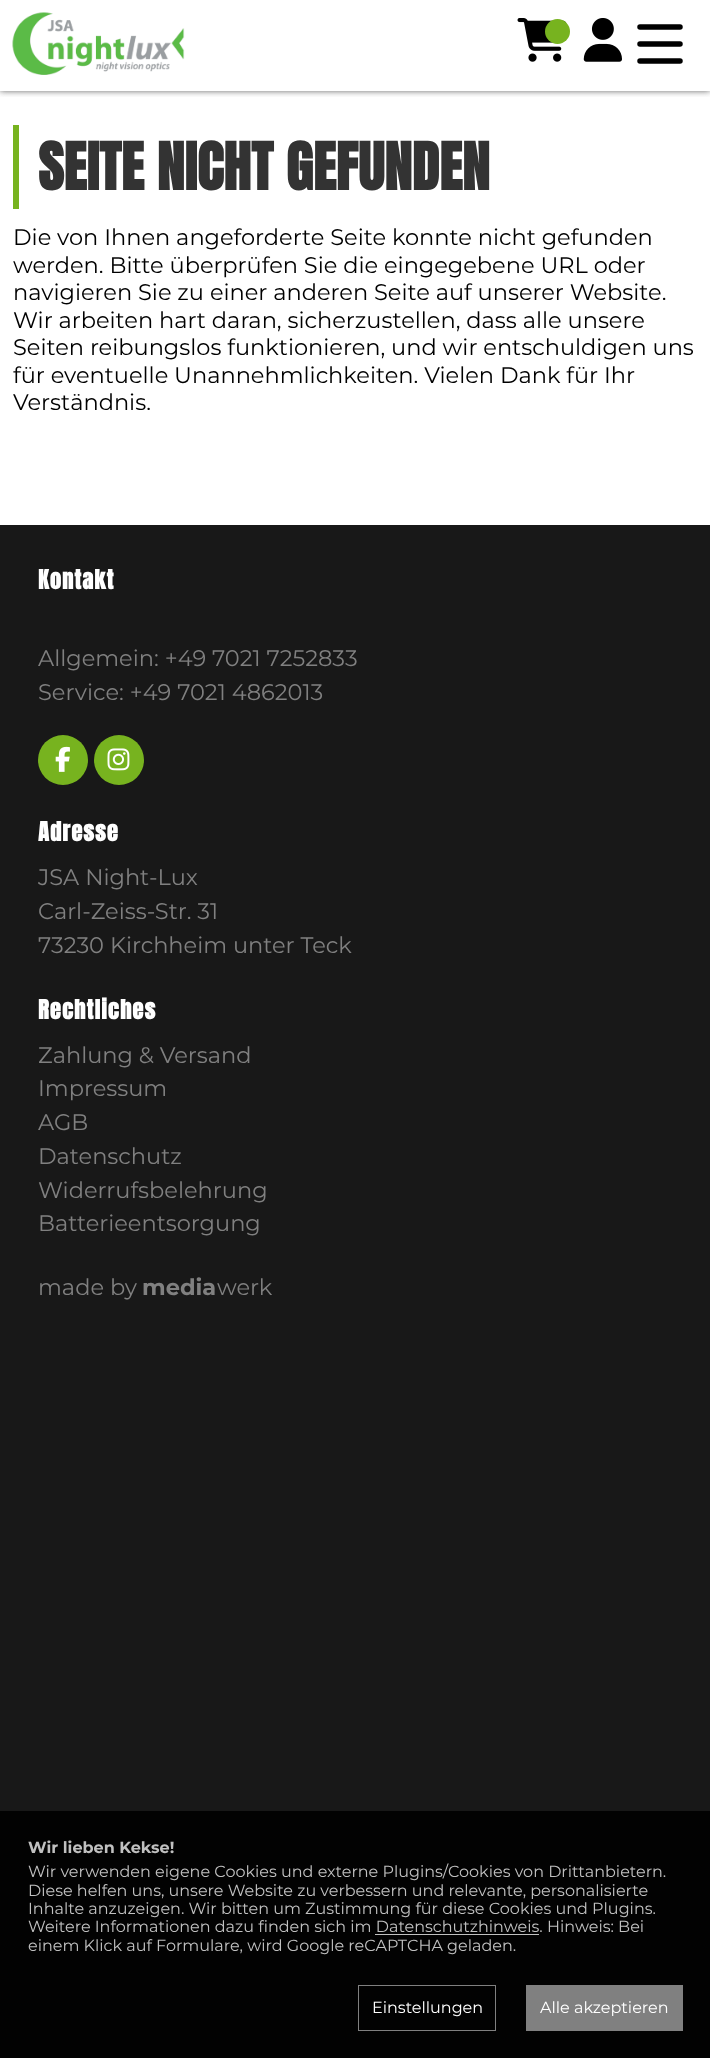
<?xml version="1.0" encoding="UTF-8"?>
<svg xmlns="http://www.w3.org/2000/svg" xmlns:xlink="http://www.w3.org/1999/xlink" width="710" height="2058">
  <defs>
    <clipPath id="clip1"><rect x="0" y="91" width="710" height="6" /></clipPath>
  </defs>
  <rect width="100%" height="100%" fill="#181818" />
  <rect width="710" height="525" fill="#ffffff" />
  <g clip-path="url(#clip1)">
    <rect width="710" height="91" fill="#666666" filter="blur(3px)" />
  </g>
  <image x="12" y="12" width="173" height="63" xlink:href="image1.png" />
  <image x="517" y="18" width="50" height="44" xlink:href="image2.png" />
  <circle cx="557.5" cy="31.5" r="12.5" fill="#77b31f" />
  <image x="583" y="18" width="39" height="44" xlink:href="image3.png" />
  <path d="M 640 27 h 40 m -40 17 h 40 m -40 17 h 40" fill="none" stroke="#000000" stroke-width="5.5" stroke-linecap="round" />
  <rect x="13" y="125" width="6" height="84" fill="#77b31f" />
  <circle cx="63" cy="760" r="25" fill="#77b31f" />
  <image x="55" y="746" width="15" height="26" xlink:href="image4.png" />
  <circle cx="119" cy="760" r="25" fill="#77b31f" />
  <image x="107" y="748" width="23" height="23" xlink:href="image5.png" />
  <rect y="1811" width="710" height="247" fill="#020202" />
  <rect x="375" y="1934" width="164" height="1" fill="#c0c0c0" />
  <rect x="358.5" y="1985.5" width="137" height="45" fill="none" stroke="#808080" />
  <rect x="526" y="1985" width="157" height="46" fill="#808080" />
  <text x="38" y="190" style="font-family: Anton; font-size: 55.5px; font-weight: bold; fill: #333333">SEITE NICHT GEFUNDEN</text>
  <text x="13" y="245" style="font-family: Montserrat; font-size: 22.5px; fill: #000000">Die von Ihnen angeforderte Seite konnte nicht gefunden</text>
  <text x="13" y="273" style="font-family: Montserrat; font-size: 22.5px; fill: #000000">werden. Bitte überprüfen Sie die eingegebene URL oder</text>
  <text x="13" y="300" style="font-family: Montserrat; font-size: 22.5px; fill: #000000">navigieren Sie zu einer anderen Seite auf unserer Website.</text>
  <text x="13" y="328" style="font-family: Montserrat; font-size: 22.5px; fill: #000000">Wir arbeiten hart daran, sicherzustellen, dass alle unsere</text>
  <text x="13" y="355" style="font-family: Montserrat; font-size: 22.5px; fill: #000000">Seiten reibungslos funktionieren, und wir entschuldigen uns</text>
  <text x="13" y="383" style="font-family: Montserrat; font-size: 22.5px; fill: #000000">für eventuelle Unannehmlichkeiten. Vielen Dank für Ihr</text>
  <text x="13" y="410" style="font-family: Montserrat; font-size: 22.5px; fill: #000000">Verständnis.</text>
  <text x="38" y="589" style="font-family: Anton; font-size: 22.5px; font-weight: bold; letter-spacing: 1.1px; fill: #ffffff">Kontakt</text>
  <text x="38" y="666" style="font-family: Montserrat; font-size: 22.5px; fill: #808080">Allgemein: +49 7021 7252833</text>
  <text x="38" y="700" style="font-family: Montserrat; font-size: 22.5px; fill: #808080">Service: +49 7021 4862013</text>
  <text x="38" y="841" style="font-family: Anton; font-size: 22.5px; font-weight: bold; letter-spacing: 1.1px; fill: #ffffff">Adresse</text>
  <text x="38" y="885" style="font-family: Montserrat; font-size: 22.5px; fill: #808080">JSA Night-Lux</text>
  <text x="38" y="919" style="font-family: Montserrat; font-size: 22.5px; fill: #808080">Carl-Zeiss-Str. 31</text>
  <text x="38" y="953" style="font-family: Montserrat; font-size: 22.5px; fill: #808080">73230 Kirchheim unter Teck</text>
  <text x="38" y="1019" style="font-family: Anton; font-size: 22.5px; font-weight: bold; letter-spacing: 1.1px; fill: #ffffff">Rechtliches</text>
  <text x="38" y="1063" style="font-family: Montserrat; font-size: 22.5px; fill: #808080">Zahlung &amp; Versand</text>
  <text x="38" y="1096" style="font-family: Montserrat; font-size: 22.5px; fill: #808080">Impressum</text>
  <text x="38" y="1130" style="font-family: Montserrat; font-size: 22.5px; fill: #808080">AGB</text>
  <text x="38" y="1164" style="font-family: Montserrat; font-size: 22.5px; fill: #808080">Datenschutz</text>
  <text x="38" y="1198" style="font-family: Montserrat; font-size: 22.5px; fill: #808080">Widerrufsbelehrung</text>
  <text x="38" y="1231" style="font-family: Montserrat; font-size: 22.5px; fill: #808080">Batterieentsorgung</text>
  <text x="38" y="1295" style="font-family: Montserrat; font-size: 22.5px; fill: #808080">made by</text>
  <text x="142" y="1295" style="font-family: Montserrat; font-size: 22.5px; font-weight: bold; fill: #808080">media</text>
  <text x="217" y="1295" style="font-family: Montserrat; font-size: 22.5px; fill: #808080">werk</text>
  <text x="28" y="1853" style="font-family: Montserrat; font-size: 16px; font-weight: bold; fill: #c0c0c0">Wir lieben Kekse!</text>
  <text x="28" y="1877" style="font-family: Montserrat; font-size: 16px; fill: #c0c0c0">Wir verwenden eigene Cookies und externe Plugins/Cookies von Drittanbietern.</text>
  <text x="28" y="1896" style="font-family: Montserrat; font-size: 16px; fill: #c0c0c0">Diese helfen uns, unsere Website zu verbessern und relevante, personalisierte</text>
  <text x="28" y="1914" style="font-family: Montserrat; font-size: 16px; fill: #c0c0c0">Inhalte anzuzeigen. Wir bitten um Zustimmung für diese Cookies und Plugins.</text>
  <text x="28" y="1932" style="font-family: Montserrat; font-size: 16px; fill: #c0c0c0">Weitere Informationen dazu finden sich im Datenschutzhinweis. Hinweis: Bei</text>
  <text x="28" y="1951" style="font-family: Montserrat; font-size: 16px; fill: #c0c0c0">einem Klick auf Formulare, wird Google reCAPTCHA geladen.</text>
  <text x="372" y="2013" style="font-family: Montserrat; font-size: 16px; fill: #ffffff">Einstellungen</text>
  <text x="540" y="2013" style="font-family: Montserrat; font-size: 16px; fill: #ffffff">Alle akzeptieren</text>
</svg>
